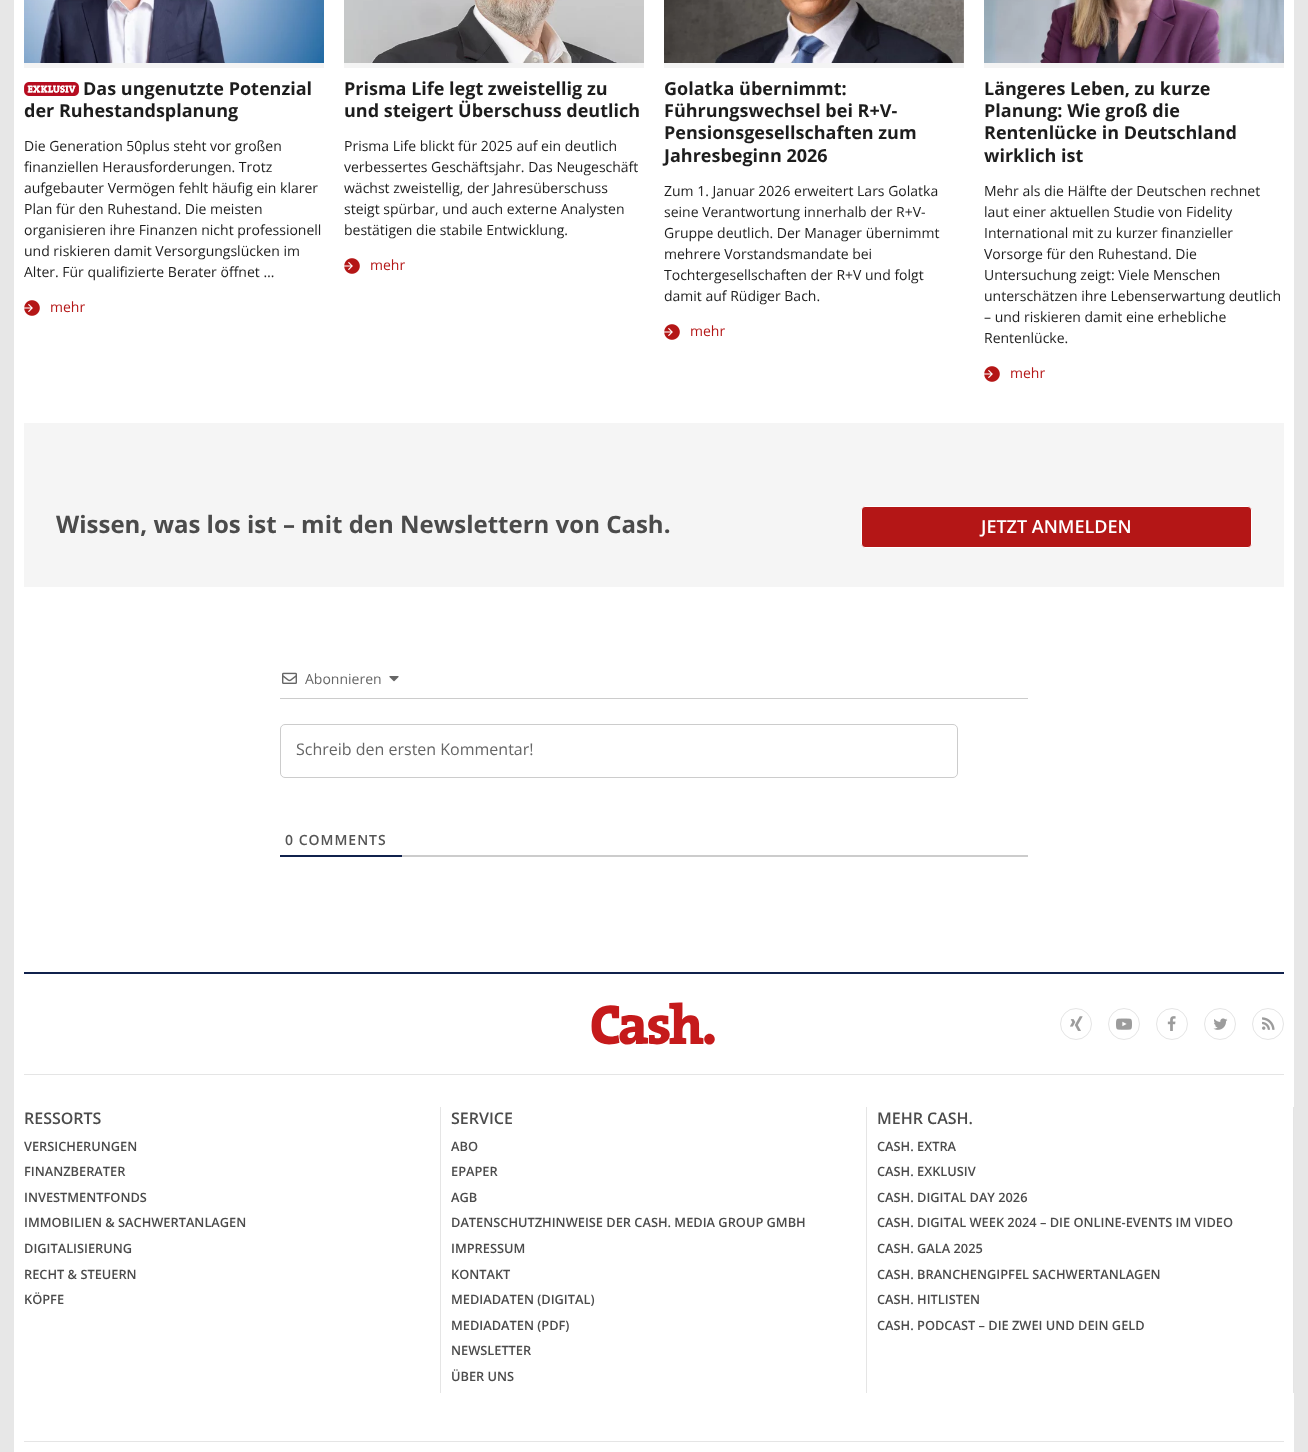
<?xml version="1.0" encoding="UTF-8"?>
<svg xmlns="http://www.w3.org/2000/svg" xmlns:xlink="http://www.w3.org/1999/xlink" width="1308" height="1452">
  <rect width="100%" height="100%" fill="#e7e7e7" />
  <rect x="14" width="1280" height="1452" fill="#ffffff" />
  <rect x="24" y="63" width="300" height="5" fill="#f4f4f4" />
  <image x="24" y="0" width="300" height="63" xlink:href="image1.png" />
  <image x="24" y="82" width="55" height="14" xlink:href="image2.png" />
  <image x="24" y="300" width="16" height="16" xlink:href="image3.png" />
  <rect x="344" y="63" width="300" height="5" fill="#f4f4f4" />
  <image x="344" y="0" width="300" height="63" xlink:href="image4.png" />
  <image x="344" y="258" width="16" height="16" xlink:href="image3.png" />
  <rect x="664" y="63" width="300" height="5" fill="#f4f4f4" />
  <image x="664" y="0" width="300" height="63" xlink:href="image5.png" />
  <image x="664" y="324" width="16" height="16" xlink:href="image3.png" />
  <rect x="984" y="63" width="300" height="5" fill="#f4f4f4" />
  <image x="984" y="0" width="300" height="63" xlink:href="image6.png" />
  <image x="984" y="366" width="16" height="16" xlink:href="image3.png" />
  <rect x="24" y="423" width="1260" height="164" fill="#f5f5f5" />
  <rect x="861.5" y="506.5" width="390" height="41" rx="3.5" fill="#b41616" stroke="#ffffff" />
  <rect x="280" y="698" width="748" height="1" fill="#cccccc" />
  <image x="282" y="672" width="15" height="12" xlink:href="image7.png" />
  <image x="389" y="676" width="10" height="6" xlink:href="image8.png" />
  <rect x="280.5" y="724.5" width="677" height="53" rx="4.5" fill="none" stroke="#cccccc" />
  <rect x="402" y="855" width="626" height="2" fill="#cccccc" />
  <rect x="280" y="855" width="122" height="2" fill="#10214c" />
  <rect x="24" y="972" width="1260" height="2" fill="#10214c" />
  <image x="591" y="1002" width="124" height="43" xlink:href="image9.png" />
  <circle cx="1076" cy="1024" r="15.5" fill="none" stroke="#e5e5e5" />
  <image x="1070" y="1016" width="13" height="15" xlink:href="image10.png" />
  <circle cx="1124" cy="1024" r="15.5" fill="none" stroke="#e5e5e5" />
  <image x="1116" y="1018" width="16" height="12" xlink:href="image11.png" />
  <circle cx="1172" cy="1024" r="15.5" fill="none" stroke="#e5e5e5" />
  <image x="1167" y="1016" width="9" height="15" xlink:href="image12.png" />
  <circle cx="1220" cy="1024" r="15.5" fill="none" stroke="#e5e5e5" />
  <image x="1213" y="1018" width="15" height="12" xlink:href="image13.png" />
  <circle cx="1268" cy="1024" r="15.5" fill="none" stroke="#e5e5e5" />
  <image x="1262" y="1017" width="13" height="13" xlink:href="image14.png" />
  <rect x="24" y="1074" width="1260" height="1" fill="#e5e5e5" />
  <rect x="440" y="1107" width="1" height="286" fill="#e5e5e5" />
  <rect x="866" y="1107" width="1" height="286" fill="#e5e5e5" />
  <rect x="1293" y="1107" width="1" height="286" fill="#e5e5e5" />
  <rect x="24" y="1441" width="1260" height="1" fill="#e5e5e5" />
  <text x="83" y="95" style="font-family: Open Sans; font-size: 18px; font-weight: bold; fill: #1d1d1d">Das ungenutzte Potenzial</text>
  <text x="24" y="117" style="font-family: Open Sans; font-size: 18px; font-weight: bold; fill: #1d1d1d">der Ruhestandsplanung</text>
  <text x="24" y="151" style="font-family: Open Sans; font-size: 14px; fill: #1d1d1d">Die Generation 50plus steht vor großen</text>
  <text x="24" y="172" style="font-family: Open Sans; font-size: 14px; fill: #1d1d1d">finanziellen Herausforderungen. Trotz</text>
  <text x="24" y="193" style="font-family: Open Sans; font-size: 14px; fill: #1d1d1d">aufgebauter Vermögen fehlt häufig ein klarer</text>
  <text x="24" y="214" style="font-family: Open Sans; font-size: 14px; fill: #1d1d1d">Plan für den Ruhestand. Die meisten</text>
  <text x="24" y="235" style="font-family: Open Sans; font-size: 14px; fill: #1d1d1d">organisieren ihre Finanzen nicht professionell</text>
  <text x="24" y="256" style="font-family: Open Sans; font-size: 14px; fill: #1d1d1d">und riskieren damit Versorgungslücken im</text>
  <text x="24" y="277" style="font-family: Open Sans; font-size: 14px; fill: #1d1d1d">Alter. Für qualifizierte Berater öffnet …</text>
  <text x="50" y="312" style="font-family: Open Sans; font-size: 14px; fill: #b41616">mehr</text>
  <text x="344" y="95" style="font-family: Open Sans; font-size: 18px; font-weight: bold; fill: #1d1d1d">Prisma Life legt zweistellig zu</text>
  <text x="344" y="117" style="font-family: Open Sans; font-size: 18px; font-weight: bold; fill: #1d1d1d">und steigert Überschuss deutlich</text>
  <text x="344" y="151" style="font-family: Open Sans; font-size: 14px; fill: #1d1d1d">Prisma Life blickt für 2025 auf ein deutlich</text>
  <text x="344" y="172" style="font-family: Open Sans; font-size: 14px; fill: #1d1d1d">verbessertes Geschäftsjahr. Das Neugeschäft</text>
  <text x="344" y="193" style="font-family: Open Sans; font-size: 14px; fill: #1d1d1d">wächst zweistellig, der Jahresüberschuss</text>
  <text x="344" y="214" style="font-family: Open Sans; font-size: 14px; fill: #1d1d1d">steigt spürbar, und auch externe Analysten</text>
  <text x="344" y="235" style="font-family: Open Sans; font-size: 14px; fill: #1d1d1d">bestätigen die stabile Entwicklung.</text>
  <text x="370" y="270" style="font-family: Open Sans; font-size: 14px; fill: #b41616">mehr</text>
  <text x="664" y="95" style="font-family: Open Sans; font-size: 18px; font-weight: bold; fill: #1d1d1d">Golatka übernimmt:</text>
  <text x="664" y="117" style="font-family: Open Sans; font-size: 18px; font-weight: bold; fill: #1d1d1d">Führungswechsel bei R+V-</text>
  <text x="664" y="139" style="font-family: Open Sans; font-size: 18px; font-weight: bold; fill: #1d1d1d">Pensionsgesellschaften zum</text>
  <text x="664" y="162" style="font-family: Open Sans; font-size: 18px; font-weight: bold; fill: #1d1d1d">Jahresbeginn 2026</text>
  <text x="664" y="196" style="font-family: Open Sans; font-size: 14px; fill: #1d1d1d">Zum 1. Januar 2026 erweitert Lars Golatka</text>
  <text x="664" y="217" style="font-family: Open Sans; font-size: 14px; fill: #1d1d1d">seine Verantwortung innerhalb der R+V-</text>
  <text x="664" y="238" style="font-family: Open Sans; font-size: 14px; fill: #1d1d1d">Gruppe deutlich. Der Manager übernimmt</text>
  <text x="664" y="259" style="font-family: Open Sans; font-size: 14px; fill: #1d1d1d">mehrere Vorstandsmandate bei</text>
  <text x="664" y="280" style="font-family: Open Sans; font-size: 14px; fill: #1d1d1d">Tochtergesellschaften der R+V und folgt</text>
  <text x="664" y="301" style="font-family: Open Sans; font-size: 14px; fill: #1d1d1d">damit auf Rüdiger Bach.</text>
  <text x="690" y="336" style="font-family: Open Sans; font-size: 14px; fill: #b41616">mehr</text>
  <text x="984" y="95" style="font-family: Open Sans; font-size: 18px; font-weight: bold; fill: #1d1d1d">Längeres Leben, zu kurze</text>
  <text x="984" y="117" style="font-family: Open Sans; font-size: 18px; font-weight: bold; fill: #1d1d1d">Planung: Wie groß die</text>
  <text x="984" y="139" style="font-family: Open Sans; font-size: 18px; font-weight: bold; fill: #1d1d1d">Rentenlücke in Deutschland</text>
  <text x="984" y="162" style="font-family: Open Sans; font-size: 18px; font-weight: bold; fill: #1d1d1d">wirklich ist</text>
  <text x="984" y="196" style="font-family: Open Sans; font-size: 14px; fill: #1d1d1d">Mehr als die Hälfte der Deutschen rechnet</text>
  <text x="984" y="217" style="font-family: Open Sans; font-size: 14px; fill: #1d1d1d">laut einer aktuellen Studie von Fidelity</text>
  <text x="984" y="238" style="font-family: Open Sans; font-size: 14px; fill: #1d1d1d">International mit zu kurzer finanzieller</text>
  <text x="984" y="259" style="font-family: Open Sans; font-size: 14px; fill: #1d1d1d">Vorsorge für den Ruhestand. Die</text>
  <text x="984" y="280" style="font-family: Open Sans; font-size: 14px; fill: #1d1d1d">Untersuchung zeigt: Viele Menschen</text>
  <text x="984" y="301" style="font-family: Open Sans; font-size: 14px; fill: #1d1d1d">unterschätzen ihre Lebenserwartung deutlich</text>
  <text x="984" y="322" style="font-family: Open Sans; font-size: 14px; fill: #1d1d1d">– und riskieren damit eine erhebliche</text>
  <text x="984" y="343" style="font-family: Open Sans; font-size: 14px; fill: #1d1d1d">Rentenlücke.</text>
  <text x="1010" y="378" style="font-family: Open Sans; font-size: 14px; fill: #b41616">mehr</text>
  <text x="56" y="533" style="font-family: Open Sans; font-size: 24px; font-weight: bold; fill: #4b4b4b">Wissen, was los ist – mit den Newslettern von Cash.</text>
  <text x="981" y="533" style="font-family: Open Sans; font-size: 18px; font-weight: 600; fill: #ffffff">JETZT ANMELDEN</text>
  <text x="305" y="684" style="font-family: Open Sans; font-size: 14px; fill: #666666">Abonnieren</text>
  <text x="296" y="755" style="font-family: Open Sans; font-size: 16px; fill: #666666">Schreib den ersten Kommentar!</text>
  <text x="285" y="845" style="font-family: Open Sans; font-size: 14px; font-weight: 600; letter-spacing: 1px; fill: #555555">0 COMMENTS</text>
  <text x="24" y="1124" style="font-family: Open Sans; font-size: 16px; font-weight: 600; fill: #4b4b4b">RESSORTS</text>
  <text x="24" y="1151" style="font-family: Open Sans; font-size: 12.8px; font-weight: 600; fill: #4b4b4b">VERSICHERUNGEN</text>
  <text x="24" y="1176" style="font-family: Open Sans; font-size: 12.8px; font-weight: 600; fill: #4b4b4b">FINANZBERATER</text>
  <text x="24" y="1202" style="font-family: Open Sans; font-size: 12.8px; font-weight: 600; fill: #4b4b4b">INVESTMENTFONDS</text>
  <text x="24" y="1227" style="font-family: Open Sans; font-size: 12.8px; font-weight: 600; fill: #4b4b4b">IMMOBILIEN &amp; SACHWERTANLAGEN</text>
  <text x="24" y="1253" style="font-family: Open Sans; font-size: 12.8px; font-weight: 600; fill: #4b4b4b">DIGITALISIERUNG</text>
  <text x="24" y="1279" style="font-family: Open Sans; font-size: 12.8px; font-weight: 600; fill: #4b4b4b">RECHT &amp; STEUERN</text>
  <text x="24" y="1304" style="font-family: Open Sans; font-size: 12.8px; font-weight: 600; fill: #4b4b4b">KÖPFE</text>
  <text x="451" y="1124" style="font-family: Open Sans; font-size: 16px; font-weight: 600; fill: #4b4b4b">SERVICE</text>
  <text x="451" y="1151" style="font-family: Open Sans; font-size: 12.8px; font-weight: 600; fill: #4b4b4b">ABO</text>
  <text x="451" y="1176" style="font-family: Open Sans; font-size: 12.8px; font-weight: 600; fill: #4b4b4b">EPAPER</text>
  <text x="451" y="1202" style="font-family: Open Sans; font-size: 12.8px; font-weight: 600; fill: #4b4b4b">AGB</text>
  <text x="451" y="1227" style="font-family: Open Sans; font-size: 12.8px; font-weight: 600; fill: #4b4b4b">DATENSCHUTZHINWEISE DER CASH. MEDIA GROUP GMBH</text>
  <text x="451" y="1253" style="font-family: Open Sans; font-size: 12.8px; font-weight: 600; fill: #4b4b4b">IMPRESSUM</text>
  <text x="451" y="1279" style="font-family: Open Sans; font-size: 12.8px; font-weight: 600; fill: #4b4b4b">KONTAKT</text>
  <text x="451" y="1304" style="font-family: Open Sans; font-size: 12.8px; font-weight: 600; fill: #4b4b4b">MEDIADATEN (DIGITAL)</text>
  <text x="451" y="1330" style="font-family: Open Sans; font-size: 12.8px; font-weight: 600; fill: #4b4b4b">MEDIADATEN (PDF)</text>
  <text x="451" y="1355" style="font-family: Open Sans; font-size: 12.8px; font-weight: 600; fill: #4b4b4b">NEWSLETTER</text>
  <text x="451" y="1381" style="font-family: Open Sans; font-size: 12.8px; font-weight: 600; fill: #4b4b4b">ÜBER UNS</text>
  <text x="877" y="1124" style="font-family: Open Sans; font-size: 16px; font-weight: 600; fill: #4b4b4b">MEHR CASH.</text>
  <text x="877" y="1151" style="font-family: Open Sans; font-size: 12.8px; font-weight: 600; fill: #4b4b4b">CASH. EXTRA</text>
  <text x="877" y="1176" style="font-family: Open Sans; font-size: 12.8px; font-weight: 600; fill: #4b4b4b">CASH. EXKLUSIV</text>
  <text x="877" y="1202" style="font-family: Open Sans; font-size: 12.8px; font-weight: 600; fill: #4b4b4b">CASH. DIGITAL DAY 2026</text>
  <text x="877" y="1227" style="font-family: Open Sans; font-size: 12.8px; font-weight: 600; fill: #4b4b4b">CASH. DIGITAL WEEK 2024 – DIE ONLINE-EVENTS IM VIDEO</text>
  <text x="877" y="1253" style="font-family: Open Sans; font-size: 12.8px; font-weight: 600; fill: #4b4b4b">CASH. GALA 2025</text>
  <text x="877" y="1279" style="font-family: Open Sans; font-size: 12.8px; font-weight: 600; fill: #4b4b4b">CASH. BRANCHENGIPFEL SACHWERTANLAGEN</text>
  <text x="877" y="1304" style="font-family: Open Sans; font-size: 12.8px; font-weight: 600; fill: #4b4b4b">CASH. HITLISTEN</text>
  <text x="877" y="1330" style="font-family: Open Sans; font-size: 12.8px; font-weight: 600; fill: #4b4b4b">CASH. PODCAST – DIE ZWEI UND DEIN GELD</text>
</svg>
